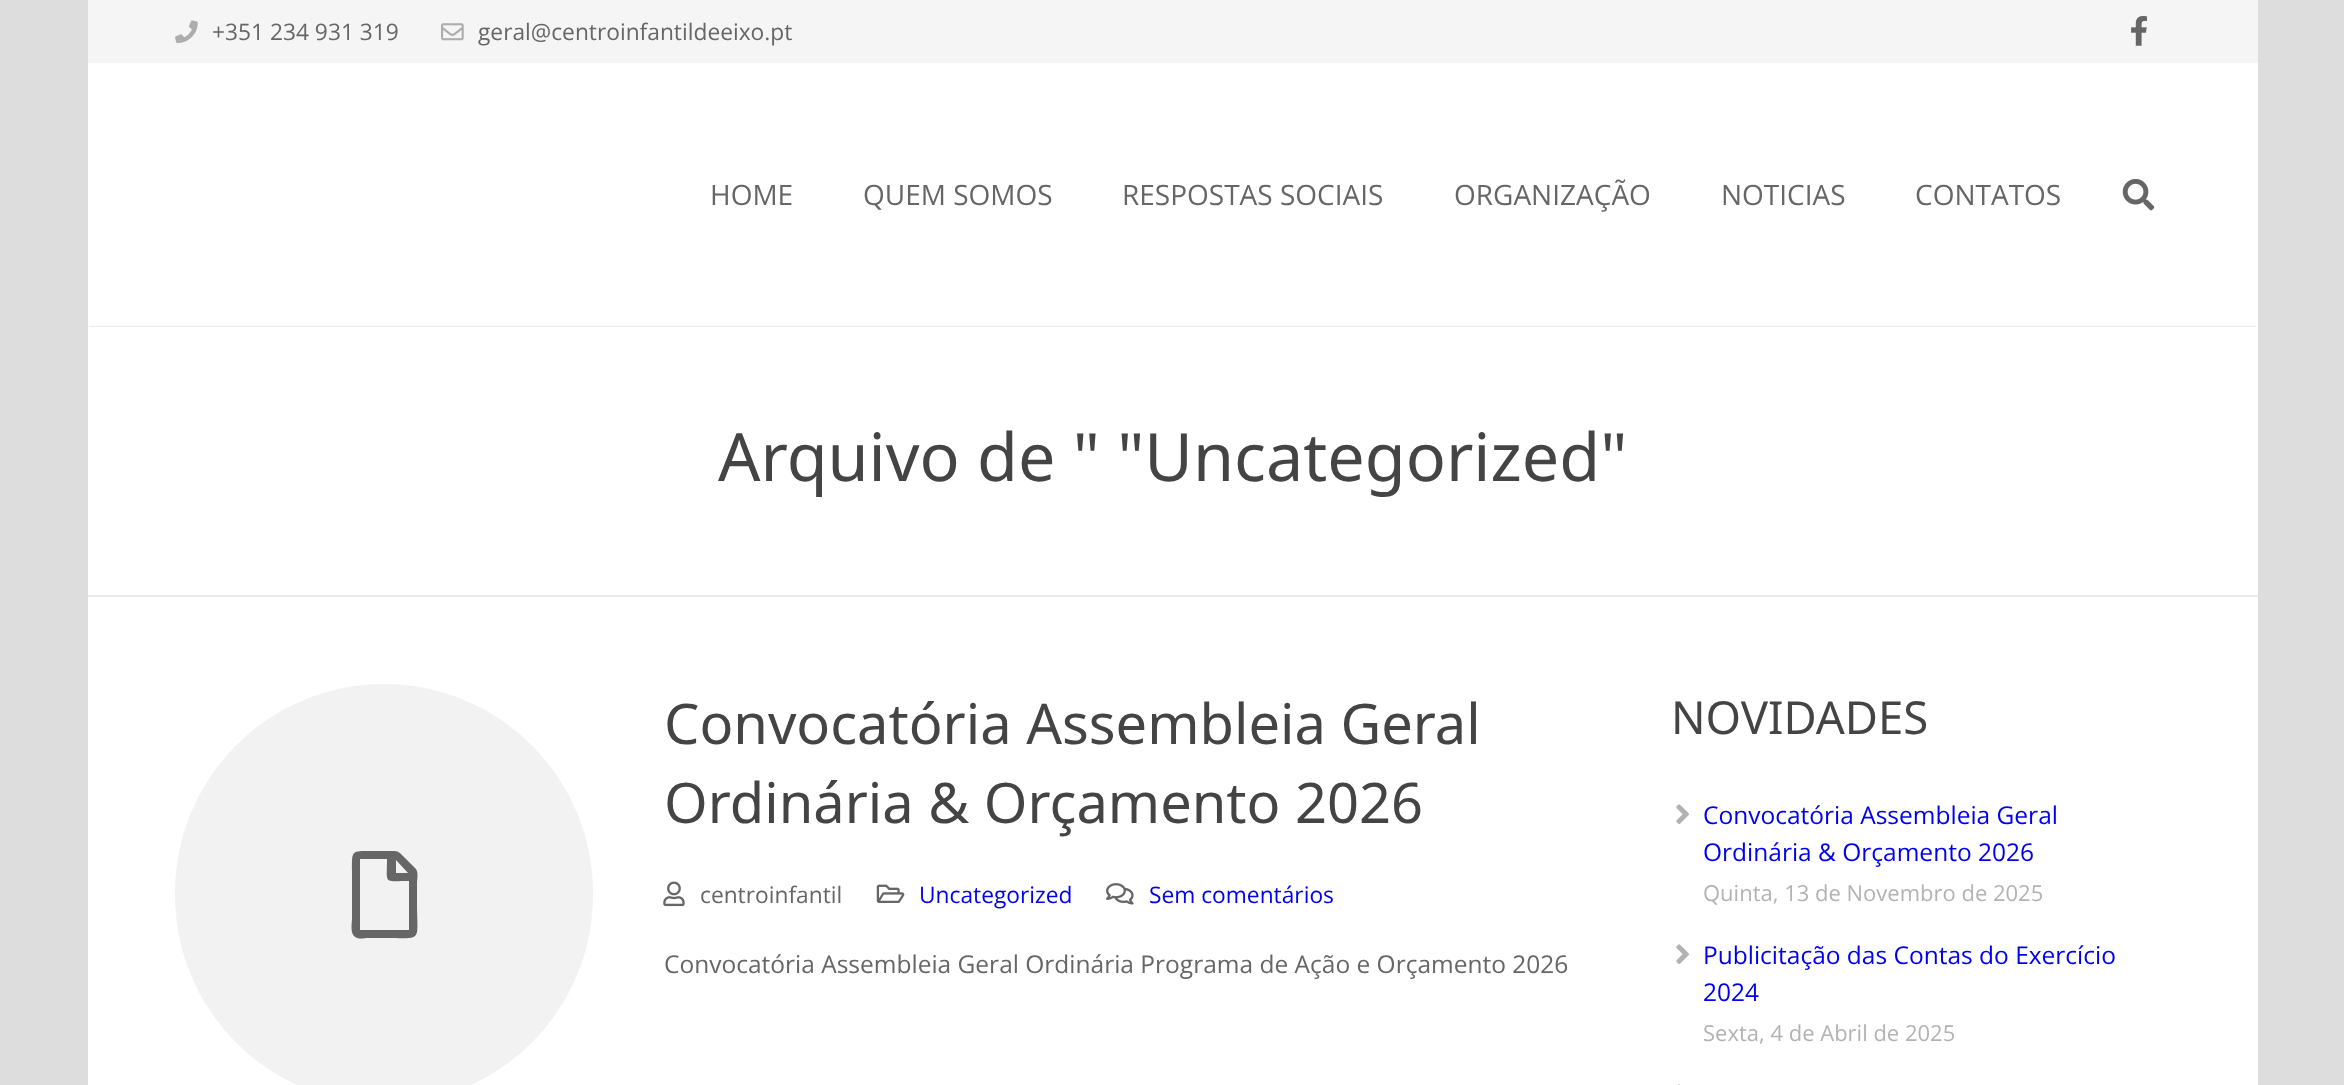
<?xml version="1.0" encoding="UTF-8"?>
<svg xmlns="http://www.w3.org/2000/svg" xmlns:xlink="http://www.w3.org/1999/xlink" width="2344" height="1085">
  <defs>
    <clipPath id="clip1"><rect x="88" width="2170" height="597" /></clipPath>
  </defs>
  <rect width="100%" height="100%" fill="#dddddd" />
  <rect x="88" y="63" width="2170" height="1022" fill="#ffffff" />
  <rect x="88" width="2170" height="63" fill="#f5f5f5" />
  <image x="175" y="20" width="23" height="24" xlink:href="image1.png" />
  <image x="441" y="23" width="23" height="18" xlink:href="image2.png" />
  <image x="2131" y="16" width="16" height="30" xlink:href="image3.png" />
  <rect x="89" y="326" width="2167" height="1" fill="#ebebeb" />
  <image x="2122" y="178" width="33" height="33" xlink:href="image4.png" />
  <g clip-path="url(#clip1)">
    <path d="M -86 -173 h 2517 v 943 h -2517 z m 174 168 h 2170 c 0 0 1 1 1 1 v 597 c 0 1 -1 2 -1 2 h -2170 c -1 0 -2 -1 -2 -2 v -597 c 0 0 1 -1 2 -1 z" fill="#ebebeb" fill-rule="evenodd" />
  </g>
  <rect x="175" y="684" width="418" height="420" rx="209" fill="#f2f2f2" />
  <path d="M 415 868 c 4 4 2 10 2 15 v 19 c 0 41 7 36 -32 36 h -17 c -4 0 -10 2 -14 -2 c -4 -4 -2 -13 -2 -18 v -47 c 0 -21 -1 -20 20 -20 h 17 c 10 0 9 0 16 7 z m -7 5 l -12 -13 v 13 z m -48 57 h 49 v -49 c -26 0 -22 4 -22 -22 h -27 z" fill="#666666" />
  <image x="663" y="881" width="22" height="26" xlink:href="image5.png" />
  <image x="876" y="884" width="29" height="19" xlink:href="image6.png" />
  <image x="1106" y="883" width="28" height="22" xlink:href="image7.png" />
  <image x="1676" y="804" width="13" height="20" xlink:href="image8.png" />
  <image x="1676" y="944" width="13" height="20" xlink:href="image8.png" />
  <image x="1678" y="1084" width="3" height="1" xlink:href="image9.png" />
  <text x="212" y="40" style="font-family: Open Sans; font-size: 22.75px; fill: #666666">+351 234 931 319</text>
  <text x="478" y="40" style="font-family: Open Sans; font-size: 22.75px; fill: #666666">geral@centroinfantildeeixo.pt</text>
  <text x="710" y="205" style="font-family: Open Sans; font-size: 28px; fill: #666666">HOME</text>
  <text x="863" y="205" style="font-family: Open Sans; font-size: 28px; fill: #666666">QUEM SOMOS</text>
  <text x="1122" y="205" style="font-family: Open Sans; font-size: 28px; fill: #666666">RESPOSTAS SOCIAIS</text>
  <text x="1454" y="205" style="font-family: Open Sans; font-size: 28px; fill: #666666">ORGANIZAÇÃO</text>
  <text x="1721" y="205" style="font-family: Open Sans; font-size: 28px; fill: #666666">NOTICIAS</text>
  <text x="1915" y="205" style="font-family: Open Sans; font-size: 28px; fill: #666666">CONTATOS</text>
  <text x="718" y="481" style="font-family: Noto Sans; font-size: 66.5px; fill: #444444">Arquivo de " "Uncategorized"</text>
  <text x="664" y="744" style="font-family: Noto Sans; font-size: 56px; fill: #444444">Convocatória Assembleia Geral</text>
  <text x="664" y="823" style="font-family: Noto Sans; font-size: 56px; fill: #444444">Ordinária &amp; Orçamento 2026</text>
  <text x="700" y="903" style="font-family: Open Sans; font-size: 22.75px; fill: #666666">centroinfantil</text>
  <text x="919" y="903" style="font-family: Open Sans; font-size: 22.75px; fill: #0000ee">Uncategorized</text>
  <text x="1149" y="903" style="font-family: Open Sans; font-size: 22.75px; fill: #0000ee">Sem comentários</text>
  <text x="664" y="973" style="font-family: Open Sans; font-size: 24.5px; fill: #666666">Convocatória Assembleia Geral Ordinária Programa de Ação e Orçamento 2026</text>
  <text x="1671" y="734" style="font-family: Noto Sans; font-size: 45.5px; fill: #444444">NOVIDADES</text>
  <text x="1703" y="824" style="font-family: Open Sans; font-size: 24.5px; fill: #0000ee">Convocatória Assembleia Geral</text>
  <text x="1703" y="861" style="font-family: Open Sans; font-size: 24.5px; fill: #0000ee">Ordinária &amp; Orçamento 2026</text>
  <text x="1703" y="901" style="font-family: Open Sans; font-size: 22px; fill: #b3b3b3">Quinta, 13 de Novembro de 2025</text>
  <text x="1703" y="964" style="font-family: Open Sans; font-size: 24.5px; fill: #0000ee">Publicitação das Contas do Exercício</text>
  <text x="1703" y="1001" style="font-family: Open Sans; font-size: 24.5px; fill: #0000ee">2024</text>
  <text x="1703" y="1041" style="font-family: Open Sans; font-size: 22px; fill: #b3b3b3">Sexta, 4 de Abril de 2025</text>
</svg>
